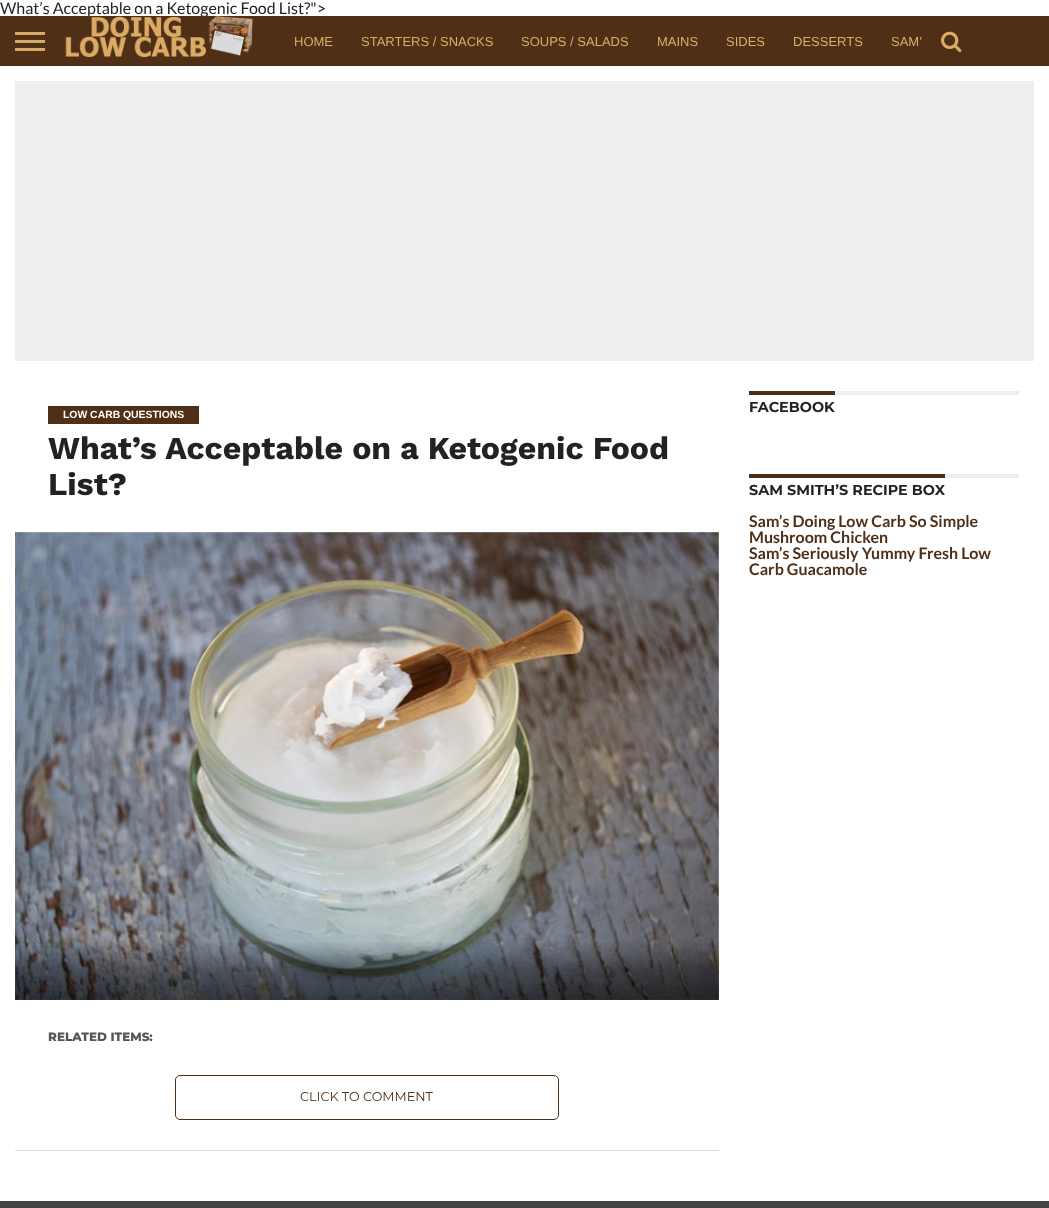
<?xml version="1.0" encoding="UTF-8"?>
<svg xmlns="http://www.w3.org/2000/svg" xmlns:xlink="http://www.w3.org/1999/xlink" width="1049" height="1208">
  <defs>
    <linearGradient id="g1" gradientUnits="userSpaceOnUse" x1="367" y1="940" x2="367" y2="1000"><stop offset="0" stop-color="#000000" stop-opacity="0" /><stop offset="0.5" stop-color="#000000" stop-opacity="0.4" /><stop offset="1" stop-color="#000000" stop-opacity="0.6" /></linearGradient>
  </defs>
  <rect width="100%" height="100%" fill="#ffffff" />
  <rect x="15" y="81" width="1019" height="280" fill="#eeeeee" />
  <rect x="15" y="1150" width="704" height="1" fill="#dddddd" />
  <rect x="48" y="406" width="151" height="18" fill="#4f2f16" />
  <image x="15" y="532" width="704" height="468" xlink:href="image3.png" />
  <rect x="15" y="942" width="704" height="58" fill="url(#g1)" />
  <rect x="175.5" y="1075.5" width="383" height="44" rx="4.5" fill="none" stroke="#4f2f16" />
  <rect x="835" y="391" width="184" height="4" fill="#eeeeee" />
  <rect x="749" y="391" width="86" height="4" fill="#4f2f16" />
  <rect x="945" y="474" width="74" height="4" fill="#eeeeee" />
  <rect x="749" y="474" width="196" height="4" fill="#4f2f16" />
  <rect y="1201" width="1049" height="7" fill="#444444" />
  <text x="0" y="14" style="font-family: Lato; font-size: 16px; fill: #222222">What’s Acceptable on a Ketogenic Food List?"&gt;</text>
  <rect y="16" width="1049" height="50" fill="#4f2f16" />
  <rect x="15" y="32" width="30" height="3" fill="#d6ab66" />
  <rect x="15" y="40" width="30" height="3" fill="#d6ab66" />
  <rect x="15" y="48" width="30" height="3" fill="#d6ab66" />
  <image x="65" y="16" width="188" height="41" xlink:href="image1.png" />
  <text x="294" y="46" style="font-family: Liberation Sans; font-size: 13px; fill: #dbab67">HOME</text>
  <text x="361" y="46" style="font-family: Liberation Sans; font-size: 13px; fill: #dbab67">STARTERS / SNACKS</text>
  <text x="521" y="46" style="font-family: Liberation Sans; font-size: 13px; fill: #dbab67">SOUPS / SALADS</text>
  <text x="657" y="46" style="font-family: Liberation Sans; font-size: 13px; fill: #dbab67">MAINS</text>
  <text x="726" y="46" style="font-family: Liberation Sans; font-size: 13px; fill: #dbab67">SIDES</text>
  <text x="793" y="46" style="font-family: Liberation Sans; font-size: 13px; fill: #dbab67">DESSERTS</text>
  <text x="891" y="46" style="font-family: Liberation Sans; font-size: 13px; fill: #dbab67">SAM’</text>
  <image x="941" y="31" width="21" height="22" xlink:href="image2.png" />
  <text x="63" y="418" style="font-family: Liberation Sans; font-size: 10.4px; font-weight: bold; fill: #ffffff">LOW CARB QUESTIONS</text>
  <text x="48" y="459" style="font-family: Work Sans; font-size: 32px; font-weight: bold; fill: #222222">What’s Acceptable on a Ketogenic Food</text>
  <text x="48" y="495" style="font-family: Work Sans; font-size: 32px; font-weight: bold; fill: #222222">List?</text>
  <text x="48" y="1041" style="font-family: Montserrat; font-size: 12px; font-weight: 800; fill: #555555">RELATED ITEMS:</text>
  <text x="300" y="1101" style="font-family: Montserrat; font-size: 12.75px; fill: #4f2f16">CLICK TO COMMENT</text>
  <text x="749" y="412" style="font-family: Montserrat; font-size: 14.4px; font-weight: bold; fill: #222222">FACEBOOK</text>
  <text x="749" y="495" style="font-family: Montserrat; font-size: 14.4px; font-weight: bold; fill: #222222">SAM SMITH’S RECIPE BOX</text>
  <text x="749" y="527" style="font-family: Lato; font-size: 16px; font-weight: bold; fill: #4f2f16">Sam’s Doing Low Carb So Simple</text>
  <text x="749" y="543" style="font-family: Lato; font-size: 16px; font-weight: bold; fill: #4f2f16">Mushroom Chicken</text>
  <text x="749" y="559" style="font-family: Lato; font-size: 16px; font-weight: bold; fill: #4f2f16">Sam’s Seriously Yummy Fresh Low</text>
  <text x="749" y="575" style="font-family: Lato; font-size: 16px; font-weight: bold; fill: #4f2f16">Carb Guacamole</text>
</svg>
